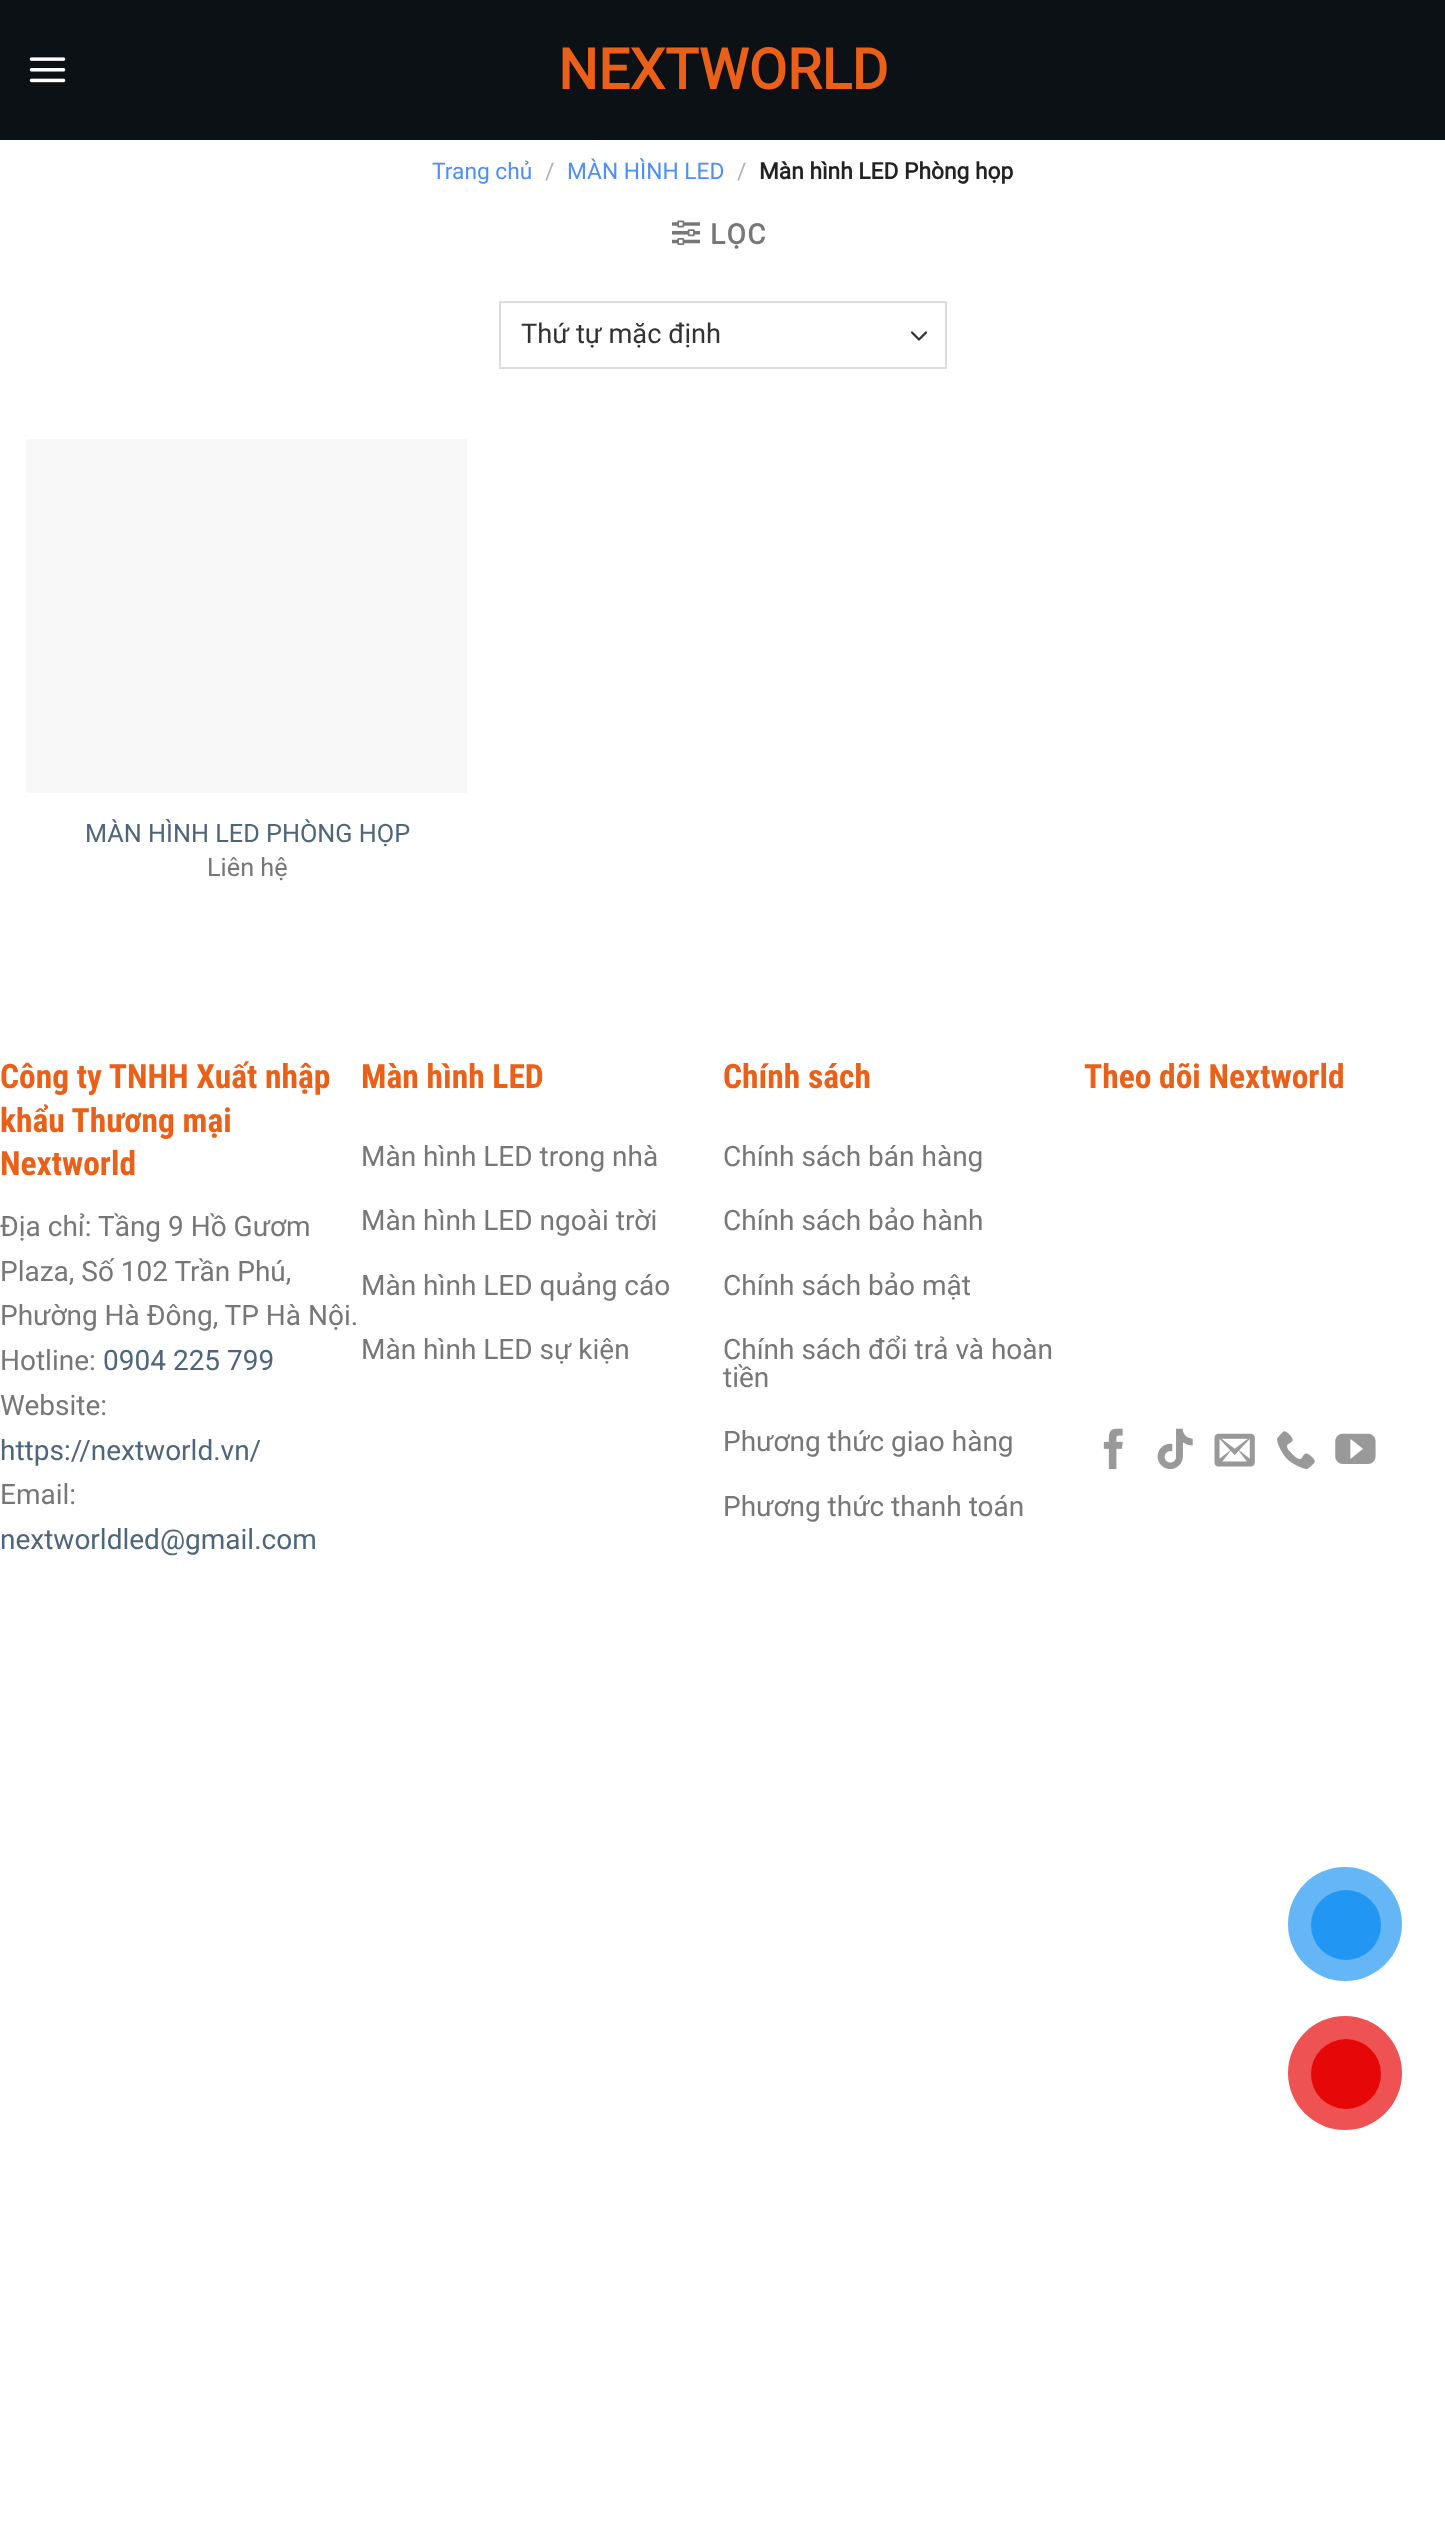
<?xml version="1.0" encoding="UTF-8"?>
<svg xmlns="http://www.w3.org/2000/svg" xmlns:xlink="http://www.w3.org/1999/xlink" width="1445" height="2531">
  <rect width="100%" height="100%" fill="#ffffff" />
  <rect width="1445" height="140" fill="#0c1115" />
  <image x="29" y="57" width="37" height="26" xlink:href="image1.png" />
  <image x="672" y="220" width="28" height="25" xlink:href="image2.png" />
  <path d="M 912 332.5 l 7 7 l 7 -7" fill="none" stroke="#333333" stroke-width="2.3" stroke-linecap="round" stroke-linejoin="round" />
  <rect x="500" y="302" width="446" height="66" fill="none" stroke="#dddddd" stroke-width="2" />
  <rect x="26" y="439" width="441" height="354" fill="#f8f8f8" />
  <image x="1103" y="1428" width="20" height="41" xlink:href="image3.png" />
  <image x="1157" y="1428" width="36" height="41" xlink:href="image4.png" />
  <image x="1214" y="1433" width="41" height="34" xlink:href="image5.png" />
  <image x="1277" y="1431" width="38" height="38" xlink:href="image6.png" />
  <image x="1335" y="1433" width="41" height="31" xlink:href="image7.png" />
  <circle cx="1345" cy="1924" r="57" fill="#64b6f7" />
  <circle cx="1346" cy="1925" r="35" fill="#2196f3" />
  <circle cx="1345" cy="2073" r="57" fill="#ee5252" />
  <circle cx="1346" cy="2074" r="35" fill="#e60808" />
  <text x="558" y="89" style="font-family: Roboto; font-size: 56px; font-weight: bold; fill: #eb6019">NEXTWORLD</text>
  <text x="432" y="179" style="font-family: Roboto; font-size: 22.75px; fill: #4e8ef5">Trang chủ</text>
  <text x="545" y="179" style="font-family: Roboto; font-size: 22.75px; fill: #b2b2b2">/</text>
  <text x="567" y="179" style="font-family: Roboto; font-size: 22.75px; fill: #4e8ef5">MÀN HÌNH LED</text>
  <text x="737" y="179" style="font-family: Roboto; font-size: 22.75px; fill: #b2b2b2">/</text>
  <text x="759" y="179" style="font-family: Roboto; font-size: 22.75px; font-weight: bold; fill: #222222">Màn hình LED Phòng họp</text>
  <text x="710" y="244" style="font-family: Roboto; font-size: 28px; font-weight: bold; letter-spacing: 1.5px; fill: #777777">LỌC</text>
  <text x="521" y="343" style="font-family: Roboto; font-size: 27.25px; fill: #333333">Thứ tự mặc định</text>
  <text x="85" y="842" style="font-family: Roboto; font-size: 25.25px; fill: #4e657b">MÀN HÌNH LED PHÒNG HỌP</text>
  <text x="207" y="876" style="font-family: Roboto; font-size: 25.25px; fill: #777777">Liên hệ</text>
  <text x="0" y="1088" style="font-family: Roboto Condensed; font-size: 33.5px; font-weight: bold; fill: #eb6019">Công ty TNHH Xuất nhập</text>
  <text x="0" y="1132" style="font-family: Roboto Condensed; font-size: 33.5px; font-weight: bold; fill: #eb6019">khẩu Thương mại</text>
  <text x="0" y="1175" style="font-family: Roboto Condensed; font-size: 33.5px; font-weight: bold; fill: #eb6019">Nextworld</text>
  <text x="0" y="1236" style="font-family: Roboto; font-size: 28px; fill: #777777">Địa chỉ: Tầng 9 Hồ Gươm</text>
  <text x="0" y="1281" style="font-family: Roboto; font-size: 28px; fill: #777777">Plaza, Số 102 Trần Phú,</text>
  <text x="0" y="1325" style="font-family: Roboto; font-size: 28px; fill: #777777">Phường Hà Đông, TP Hà Nội.</text>
  <text x="0" y="1370" style="font-family: Roboto; font-size: 28px; fill: #777777">Hotline:</text>
  <text x="103" y="1370" style="font-family: Roboto; font-size: 28px; fill: #4e657b">0904 225 799</text>
  <text x="0" y="1415" style="font-family: Roboto; font-size: 28px; fill: #777777">Website:</text>
  <text x="0" y="1460" style="font-family: Roboto; font-size: 28px; fill: #4e657b">https://nextworld.vn/</text>
  <text x="0" y="1504" style="font-family: Roboto; font-size: 28px; fill: #777777">Email:</text>
  <text x="0" y="1549" style="font-family: Roboto; font-size: 28px; fill: #4e657b">nextworldled@gmail.com</text>
  <text x="361" y="1088" style="font-family: Roboto Condensed; font-size: 33.5px; font-weight: bold; fill: #eb6019">Màn hình LED</text>
  <text x="361" y="1166" style="font-family: Roboto; font-size: 28px; fill: #777777">Màn hình LED trong nhà</text>
  <text x="361" y="1230" style="font-family: Roboto; font-size: 28px; fill: #777777">Màn hình LED ngoài trời</text>
  <text x="361" y="1295" style="font-family: Roboto; font-size: 28px; fill: #777777">Màn hình LED quảng cáo</text>
  <text x="361" y="1359" style="font-family: Roboto; font-size: 28px; fill: #777777">Màn hình LED sự kiện</text>
  <text x="723" y="1088" style="font-family: Roboto Condensed; font-size: 33.5px; font-weight: bold; fill: #eb6019">Chính sách</text>
  <text x="723" y="1166" style="font-family: Roboto; font-size: 28px; fill: #777777">Chính sách bán hàng</text>
  <text x="723" y="1230" style="font-family: Roboto; font-size: 28px; fill: #777777">Chính sách bảo hành</text>
  <text x="723" y="1295" style="font-family: Roboto; font-size: 28px; fill: #777777">Chính sách bảo mật</text>
  <text x="723" y="1359" style="font-family: Roboto; font-size: 28px; fill: #777777">Chính sách đổi trả và hoàn</text>
  <text x="723" y="1387" style="font-family: Roboto; font-size: 28px; fill: #777777">tiền</text>
  <text x="723" y="1451" style="font-family: Roboto; font-size: 28px; fill: #777777">Phương thức giao hàng</text>
  <text x="723" y="1516" style="font-family: Roboto; font-size: 28px; fill: #777777">Phương thức thanh toán</text>
  <text x="1084" y="1088" style="font-family: Roboto Condensed; font-size: 33.5px; font-weight: bold; fill: #eb6019">Theo dõi Nextworld</text>
</svg>
